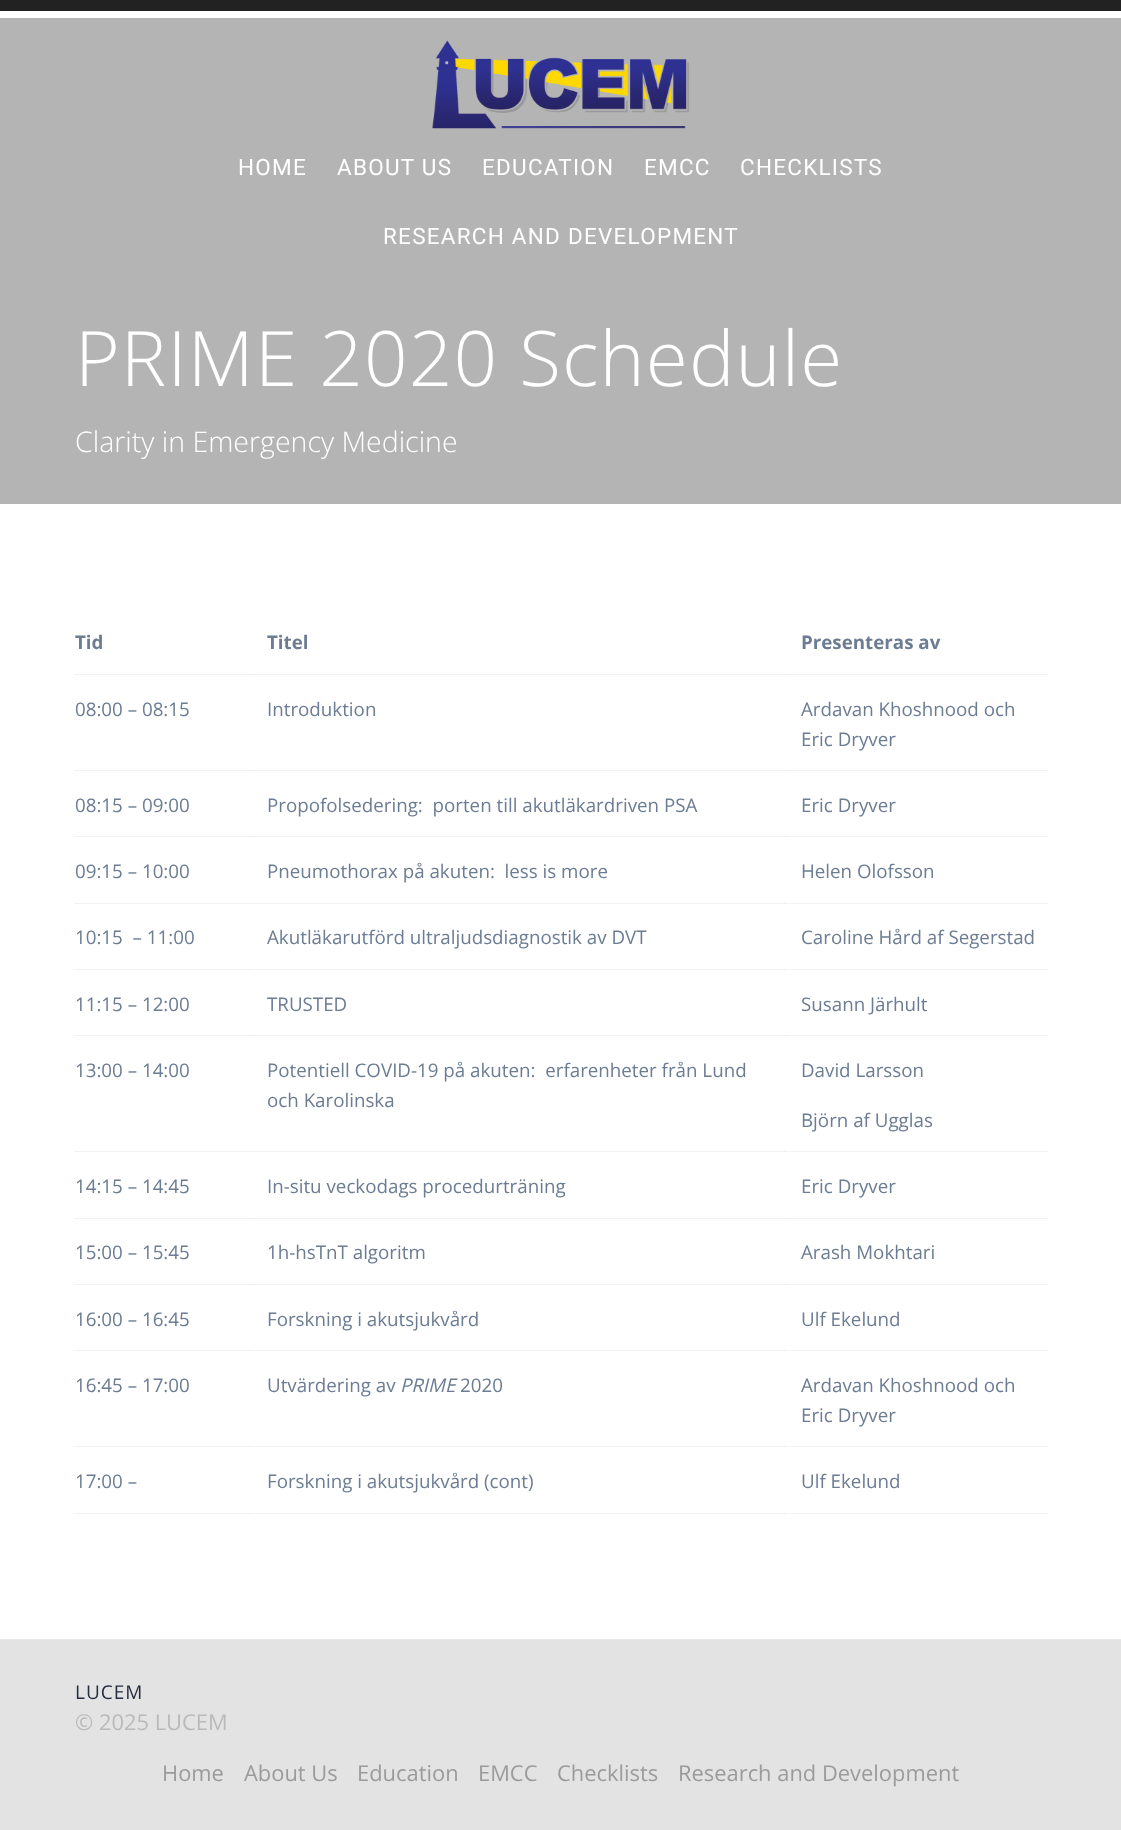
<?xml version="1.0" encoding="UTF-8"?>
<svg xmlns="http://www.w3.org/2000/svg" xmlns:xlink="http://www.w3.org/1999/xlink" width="1121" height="1830">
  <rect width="100%" height="100%" fill="#ffffff" />
  <rect x="74" y="674" width="974" height="1" fill="#f2f2f2" />
  <rect x="249" y="674" width="1" height="1" fill="#e6e6e6" />
  <rect x="74" y="770" width="974" height="1" fill="#f2f2f2" />
  <rect x="249" y="770" width="1" height="1" fill="#e6e6e6" />
  <rect x="74" y="836" width="974" height="1" fill="#f2f2f2" />
  <rect x="249" y="836" width="1" height="1" fill="#e6e6e6" />
  <rect x="74" y="903" width="974" height="1" fill="#f2f2f2" />
  <rect x="249" y="903" width="1" height="1" fill="#e6e6e6" />
  <rect x="74" y="969" width="974" height="1" fill="#f2f2f2" />
  <rect x="249" y="969" width="1" height="1" fill="#e6e6e6" />
  <rect x="74" y="1035" width="974" height="1" fill="#f2f2f2" />
  <rect x="249" y="1035" width="1" height="1" fill="#e6e6e6" />
  <rect x="74" y="1151" width="974" height="1" fill="#f2f2f2" />
  <rect x="249" y="1151" width="1" height="1" fill="#e6e6e6" />
  <rect x="74" y="1218" width="974" height="1" fill="#f2f2f2" />
  <rect x="249" y="1218" width="1" height="1" fill="#e6e6e6" />
  <rect x="74" y="1284" width="974" height="1" fill="#f2f2f2" />
  <rect x="249" y="1284" width="1" height="1" fill="#e6e6e6" />
  <rect x="74" y="1350" width="974" height="1" fill="#f2f2f2" />
  <rect x="249" y="1350" width="1" height="1" fill="#e6e6e6" />
  <rect x="74" y="1446" width="974" height="1" fill="#f2f2f2" />
  <rect x="249" y="1446" width="1" height="1" fill="#e6e6e6" />
  <rect x="74" y="1513" width="974" height="1" fill="#f2f2f2" />
  <rect x="249" y="1513" width="1" height="1" fill="#e6e6e6" />
  <rect width="1121" height="11" fill="#222222" />
  <rect y="18" width="1121" height="486" fill="#b5b4b4" />
  <image x="432" y="40" width="257" height="89" xlink:href="image1.png" />
  <rect x="784" y="674" width="1" height="1" fill="#e6e6e6" />
  <rect x="784" y="770" width="1" height="1" fill="#e6e6e6" />
  <rect x="784" y="836" width="1" height="1" fill="#e6e6e6" />
  <rect x="784" y="903" width="1" height="1" fill="#e6e6e6" />
  <rect x="784" y="969" width="1" height="1" fill="#e6e6e6" />
  <rect x="784" y="1035" width="1" height="1" fill="#e6e6e6" />
  <rect x="784" y="1151" width="1" height="1" fill="#e6e6e6" />
  <rect x="784" y="1218" width="1" height="1" fill="#e6e6e6" />
  <rect x="784" y="1284" width="1" height="1" fill="#e6e6e6" />
  <rect x="784" y="1350" width="1" height="1" fill="#e6e6e6" />
  <rect x="784" y="1446" width="1" height="1" fill="#e6e6e6" />
  <rect x="784" y="1513" width="1" height="1" fill="#e6e6e6" />
  <rect y="1640" width="1121" height="190" fill="#e3e3e3" />
  <rect y="1639" width="1121" height="1" fill="#e8e8e8" />
  <text x="238" y="175" style="font-family: Roboto; font-size: 22.5px; letter-spacing: 1.25px; fill: #ffffff">HOME</text>
  <text x="337" y="175" style="font-family: Roboto; font-size: 22.5px; letter-spacing: 1.25px; fill: #ffffff">ABOUT US</text>
  <text x="482" y="175" style="font-family: Roboto; font-size: 22.5px; letter-spacing: 1.25px; fill: #ffffff">EDUCATION</text>
  <text x="644" y="175" style="font-family: Roboto; font-size: 22.5px; letter-spacing: 1.25px; fill: #ffffff">EMCC</text>
  <text x="740" y="175" style="font-family: Roboto; font-size: 22.5px; letter-spacing: 1.25px; fill: #ffffff">CHECKLISTS</text>
  <text x="383" y="244" style="font-family: Roboto; font-size: 22.5px; letter-spacing: 1.25px; fill: #ffffff">RESEARCH AND DEVELOPMENT</text>
  <text x="75" y="386" style="font-family: Open Sans; font-size: 76.5px; font-weight: 300; letter-spacing: 1.1px; fill: #ffffff">PRIME 2020 Schedule</text>
  <text x="75" y="452" style="font-family: Open Sans; font-size: 28.5px; font-weight: 300; fill: #ffffff">Clarity in Emergency Medicine</text>
  <text x="75" y="649" style="font-family: Open Sans; font-size: 18.75px; font-weight: bold; fill: #6b7c93">Tid</text>
  <text x="267" y="649" style="font-family: Open Sans; font-size: 18.75px; font-weight: bold; fill: #6b7c93">Titel</text>
  <text x="801" y="649" style="font-family: Open Sans; font-size: 18.75px; font-weight: bold; fill: #6b7c93">Presenteras av</text>
  <text x="75" y="716" style="font-family: Open Sans; font-size: 18.75px; fill: #6b7c93">08:00 – 08:15</text>
  <text x="267" y="716" style="font-family: Open Sans; font-size: 18.75px; fill: #6b7c93">Introduktion</text>
  <text x="801" y="716" style="font-family: Open Sans; font-size: 18.75px; fill: #6b7c93">Ardavan Khoshnood och</text>
  <text x="801" y="746" style="font-family: Open Sans; font-size: 18.75px; fill: #6b7c93">Eric Dryver</text>
  <text x="75" y="812" style="font-family: Open Sans; font-size: 18.75px; fill: #6b7c93">08:15 – 09:00</text>
  <text x="267" y="812" style="font-family: Open Sans; font-size: 18.75px; fill: #6b7c93" xml:space="preserve">Propofolsedering:  porten till akutläkardriven PSA</text>
  <text x="801" y="812" style="font-family: Open Sans; font-size: 18.75px; fill: #6b7c93">Eric Dryver</text>
  <text x="75" y="878" style="font-family: Open Sans; font-size: 18.75px; fill: #6b7c93">09:15 – 10:00</text>
  <text x="267" y="878" style="font-family: Open Sans; font-size: 18.75px; fill: #6b7c93" xml:space="preserve">Pneumothorax på akuten:  less is more</text>
  <text x="801" y="878" style="font-family: Open Sans; font-size: 18.75px; fill: #6b7c93">Helen Olofsson</text>
  <text x="75" y="944" style="font-family: Open Sans; font-size: 18.75px; fill: #6b7c93" xml:space="preserve">10:15  – 11:00</text>
  <text x="267" y="944" style="font-family: Open Sans; font-size: 18.75px; fill: #6b7c93">Akutläkarutförd ultraljudsdiagnostik av DVT</text>
  <text x="801" y="944" style="font-family: Open Sans; font-size: 18.75px; fill: #6b7c93">Caroline Hård af Segerstad</text>
  <text x="75" y="1011" style="font-family: Open Sans; font-size: 18.75px; fill: #6b7c93">11:15 – 12:00</text>
  <text x="267" y="1011" style="font-family: Open Sans; font-size: 18.75px; fill: #6b7c93">TRUSTED</text>
  <text x="801" y="1011" style="font-family: Open Sans; font-size: 18.75px; fill: #6b7c93">Susann Järhult</text>
  <text x="75" y="1077" style="font-family: Open Sans; font-size: 18.75px; fill: #6b7c93">13:00 – 14:00</text>
  <text x="267" y="1077" style="font-family: Open Sans; font-size: 18.75px; fill: #6b7c93" xml:space="preserve">Potentiell COVID-19 på akuten:  erfarenheter från Lund</text>
  <text x="267" y="1107" style="font-family: Open Sans; font-size: 18.75px; fill: #6b7c93">och Karolinska</text>
  <text x="801" y="1077" style="font-family: Open Sans; font-size: 18.75px; fill: #6b7c93">David Larsson</text>
  <text x="801" y="1127" style="font-family: Open Sans; font-size: 18.75px; fill: #6b7c93">Björn af Ugglas</text>
  <text x="75" y="1193" style="font-family: Open Sans; font-size: 18.75px; fill: #6b7c93">14:15 – 14:45</text>
  <text x="267" y="1193" style="font-family: Open Sans; font-size: 18.75px; fill: #6b7c93">In-situ veckodags procedurträning</text>
  <text x="801" y="1193" style="font-family: Open Sans; font-size: 18.75px; fill: #6b7c93">Eric Dryver</text>
  <text x="75" y="1259" style="font-family: Open Sans; font-size: 18.75px; fill: #6b7c93">15:00 – 15:45</text>
  <text x="267" y="1259" style="font-family: Open Sans; font-size: 18.75px; fill: #6b7c93">1h-hsTnT algoritm</text>
  <text x="801" y="1259" style="font-family: Open Sans; font-size: 18.75px; fill: #6b7c93">Arash Mokhtari</text>
  <text x="75" y="1326" style="font-family: Open Sans; font-size: 18.75px; fill: #6b7c93">16:00 – 16:45</text>
  <text x="267" y="1326" style="font-family: Open Sans; font-size: 18.75px; fill: #6b7c93">Forskning i akutsjukvård</text>
  <text x="801" y="1326" style="font-family: Open Sans; font-size: 18.75px; fill: #6b7c93">Ulf Ekelund</text>
  <text x="75" y="1392" style="font-family: Open Sans; font-size: 18.75px; fill: #6b7c93">16:45 – 17:00</text>
  <text x="267" y="1392" style="font-family: Open Sans; font-size: 18.75px; fill: #6b7c93">Utvärdering av</text>
  <text x="400" y="1392" style="font-family: Open Sans; font-size: 18.75px; font-style: italic; fill: #6b7c93">PRIME</text>
  <text x="460" y="1392" style="font-family: Open Sans; font-size: 18.75px; fill: #6b7c93">2020</text>
  <text x="801" y="1392" style="font-family: Open Sans; font-size: 18.75px; fill: #6b7c93">Ardavan Khoshnood och</text>
  <text x="801" y="1422" style="font-family: Open Sans; font-size: 18.75px; fill: #6b7c93">Eric Dryver</text>
  <text x="75" y="1488" style="font-family: Open Sans; font-size: 18.75px; fill: #6b7c93">17:00 –</text>
  <text x="267" y="1488" style="font-family: Open Sans; font-size: 18.75px; fill: #6b7c93">Forskning i akutsjukvård (cont)</text>
  <text x="801" y="1488" style="font-family: Open Sans; font-size: 18.75px; fill: #6b7c93">Ulf Ekelund</text>
  <text x="75" y="1699" style="font-family: Open Sans; font-size: 19px; letter-spacing: 1px; fill: #262d3f">LUCEM</text>
  <text x="75" y="1730" style="font-family: Open Sans; font-size: 21.9px; fill: #bababa">© 2025 LUCEM</text>
  <text x="162" y="1781" style="font-family: Open Sans; font-size: 21.9px; fill: #9b9b9b">Home</text>
  <text x="244" y="1781" style="font-family: Open Sans; font-size: 21.9px; fill: #9b9b9b">About Us</text>
  <text x="357" y="1781" style="font-family: Open Sans; font-size: 21.9px; fill: #9b9b9b">Education</text>
  <text x="478" y="1781" style="font-family: Open Sans; font-size: 21.9px; fill: #9b9b9b">EMCC</text>
  <text x="557" y="1781" style="font-family: Open Sans; font-size: 21.9px; fill: #9b9b9b">Checklists</text>
  <text x="678" y="1781" style="font-family: Open Sans; font-size: 21.9px; fill: #9b9b9b">Research and Development</text>
</svg>
